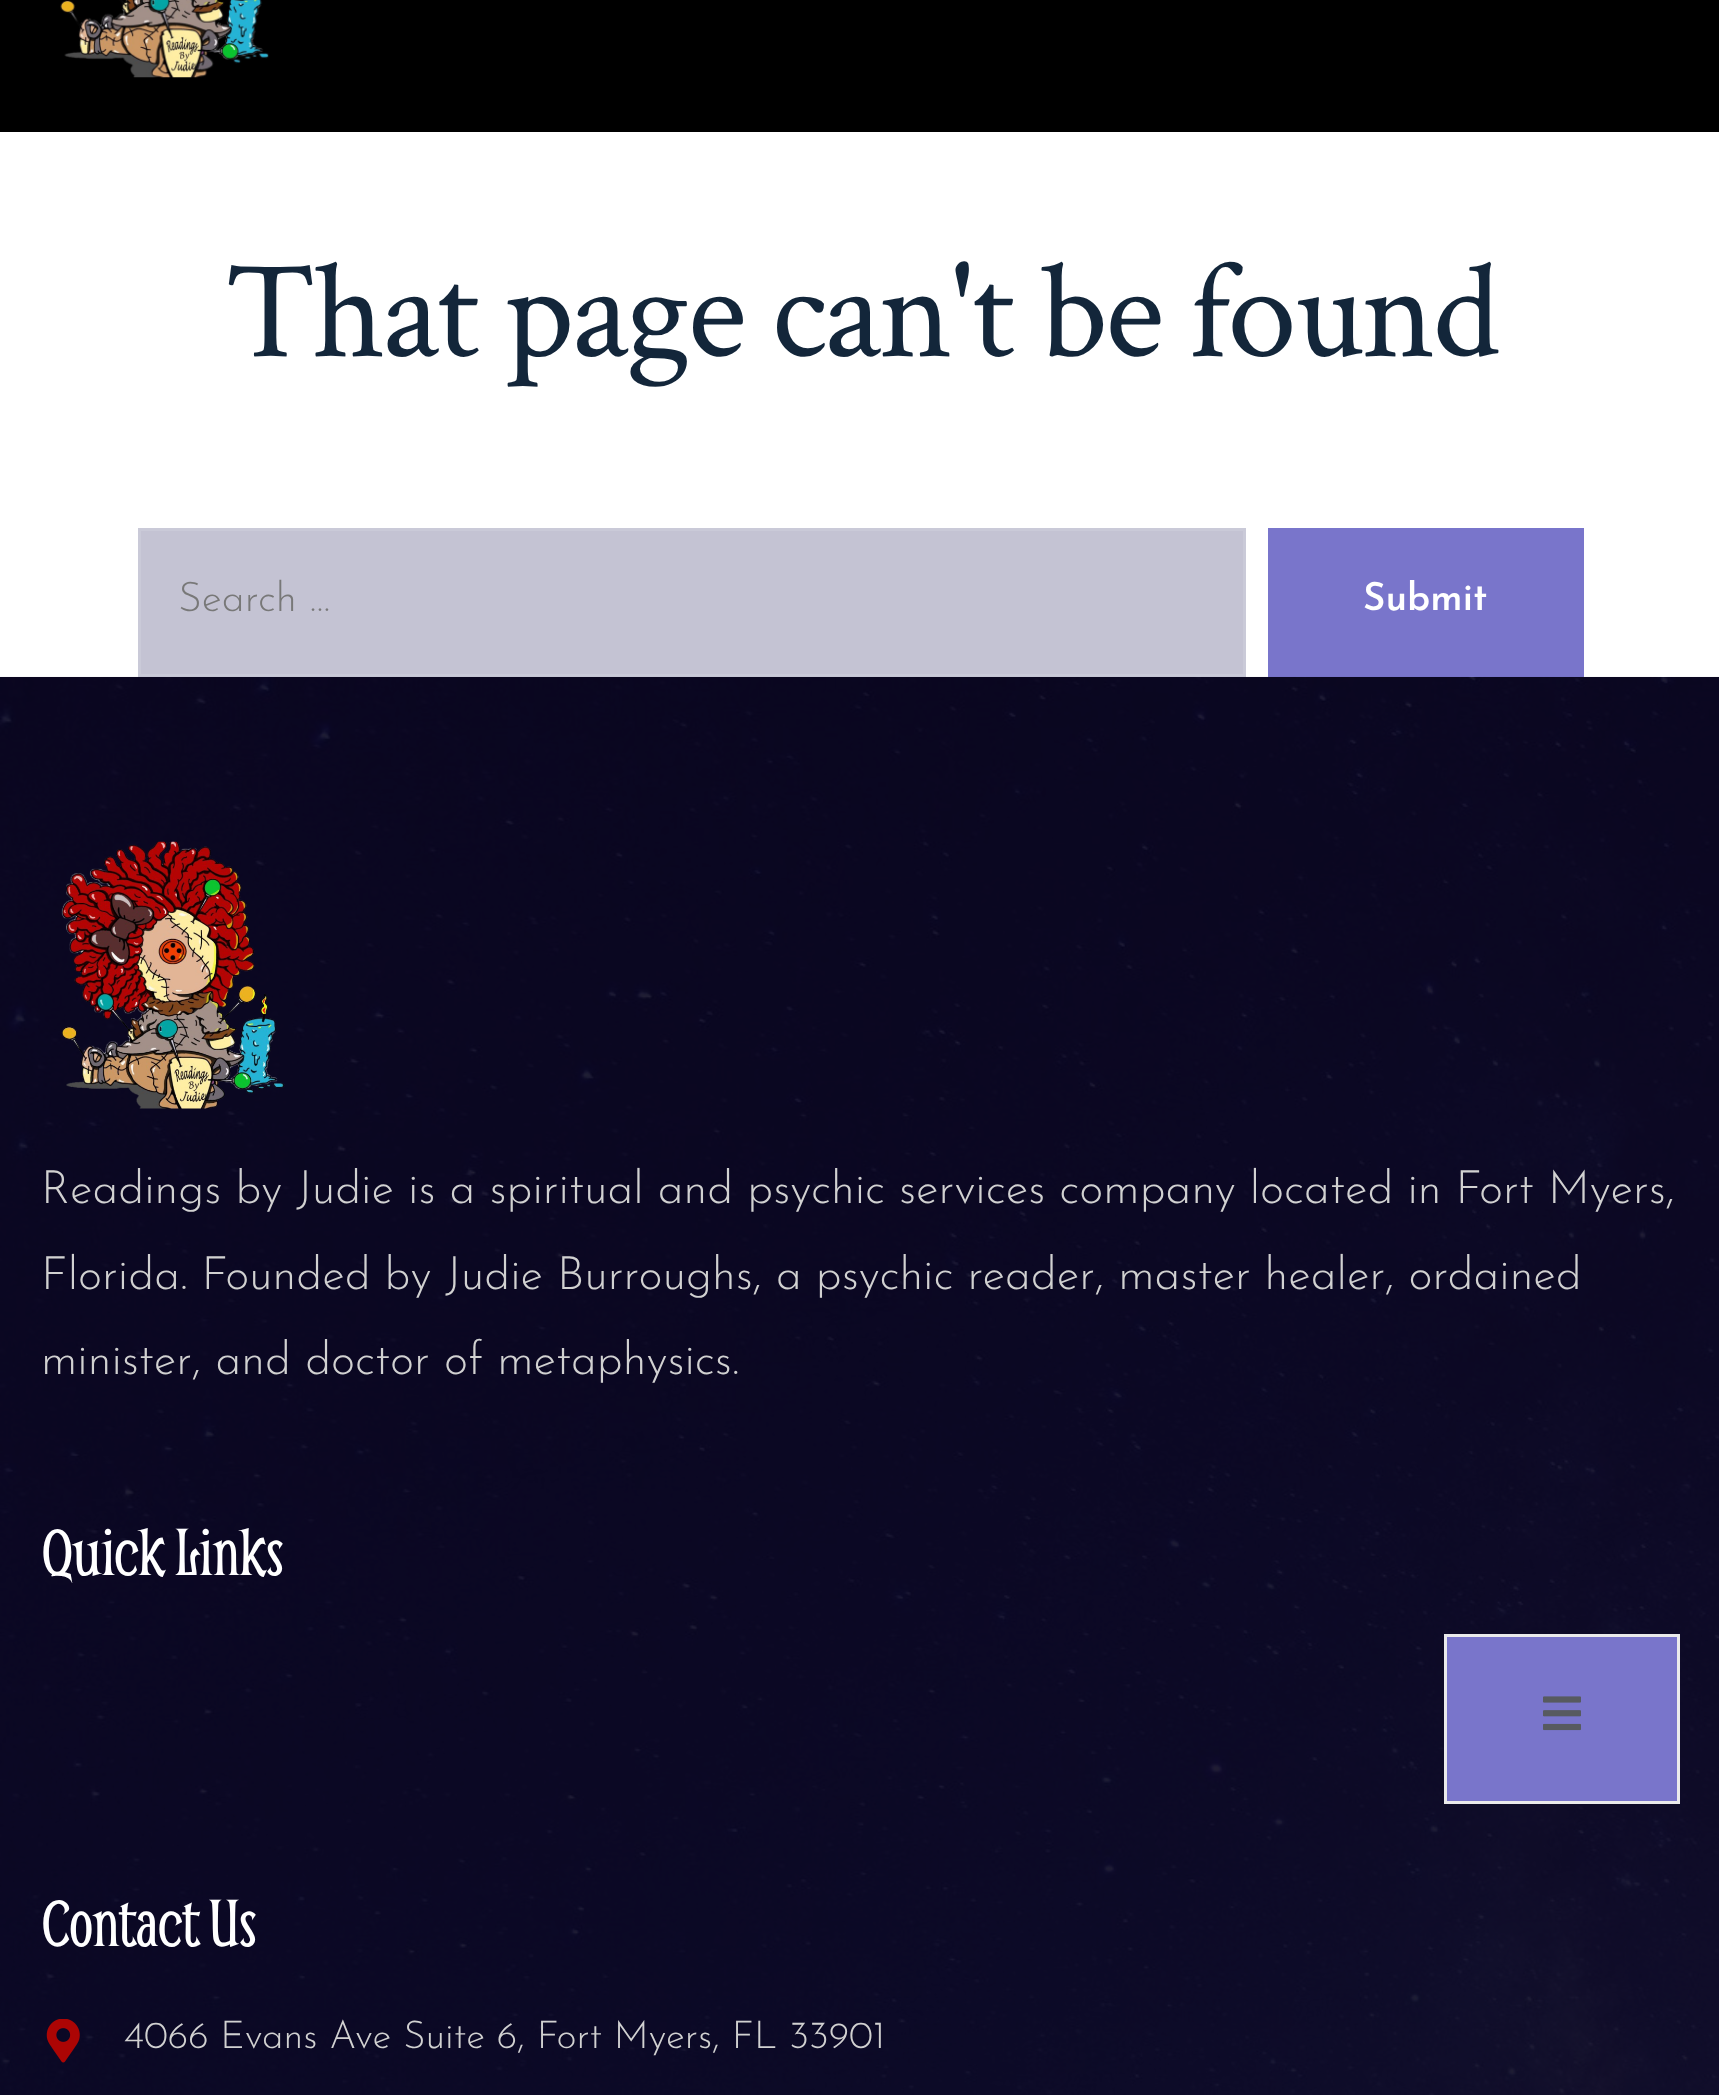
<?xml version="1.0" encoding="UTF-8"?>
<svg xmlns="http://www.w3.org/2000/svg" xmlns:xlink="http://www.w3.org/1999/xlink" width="1719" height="2095">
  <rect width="100%" height="100%" fill="#ffffff" />
  <rect width="1719" height="132" fill="#000000" />
  <image x="60" y="0" width="209" height="78" xlink:href="image1.png" />
  <rect x="139.5" y="529.5" width="1105" height="146" fill="#c4c3d3" stroke="#cacad8" stroke-width="3" />
  <rect x="1268" y="528" width="316" height="149" fill="#7975cb" />
  <rect y="677" width="1719" height="1418" fill="#0a051c" />
  <image x="0" y="676" width="1719" height="1419" xlink:href="image2.png" />
  <image x="61" y="841" width="224" height="268" xlink:href="image3.png" />
  <rect x="1445.5" y="1635.5" width="233" height="167" fill="#7975cb" stroke="#eaeaeb" stroke-width="3" />
  <image x="1543" y="1696" width="38" height="35" xlink:href="image4.png" />
  <image x="46" y="2019" width="34" height="44" xlink:href="image5.png" />
  <text x="225" y="356" style="font-family: Crimson Text; font-size: 139px; letter-spacing: -2.75px; fill: #13263a">That page can't be found</text>
  <text x="178" y="611" style="font-family: Josefin Sans; font-size: 41px; font-weight: 300; fill: #787878">Search …</text>
  <text x="1363" y="610" style="font-family: Josefin Sans; font-size: 38.5px; font-weight: 600; fill: #ffffff">Submit</text>
  <text x="41" y="1203" word-spacing="-0.1" style="font-family: Josefin Sans; font-size: 46.2px; font-weight: 300; fill: #d1d1d1">Readings by Judie is a spiritual and psychic services company located in Fort Myers,</text>
  <text x="41" y="1289" word-spacing="-0.25" style="font-family: Josefin Sans; font-size: 46.2px; font-weight: 300; fill: #d1d1d1">Florida. Founded by Judie Burroughs, a psychic reader, master healer, ordained</text>
  <text x="41" y="1374" style="font-family: Josefin Sans; font-size: 46.2px; font-weight: 300; fill: #d1d1d1">minister, and doctor of metaphysics.</text>
  <text x="41" y="1575" style="font-family: Smythe; font-size: 71.5px; letter-spacing: -1.5px; fill: #ffffff">Quick Links</text>
  <text x="41" y="1946" style="font-family: Smythe; font-size: 71.5px; letter-spacing: -1.5px; fill: #ffffff">Contact Us</text>
  <text x="124" y="2048" style="font-family: Josefin Sans; font-size: 38.5px; font-weight: 300; fill: #d1d1d1">4066 Evans Ave Suite 6, Fort Myers, FL 33901</text>
</svg>
